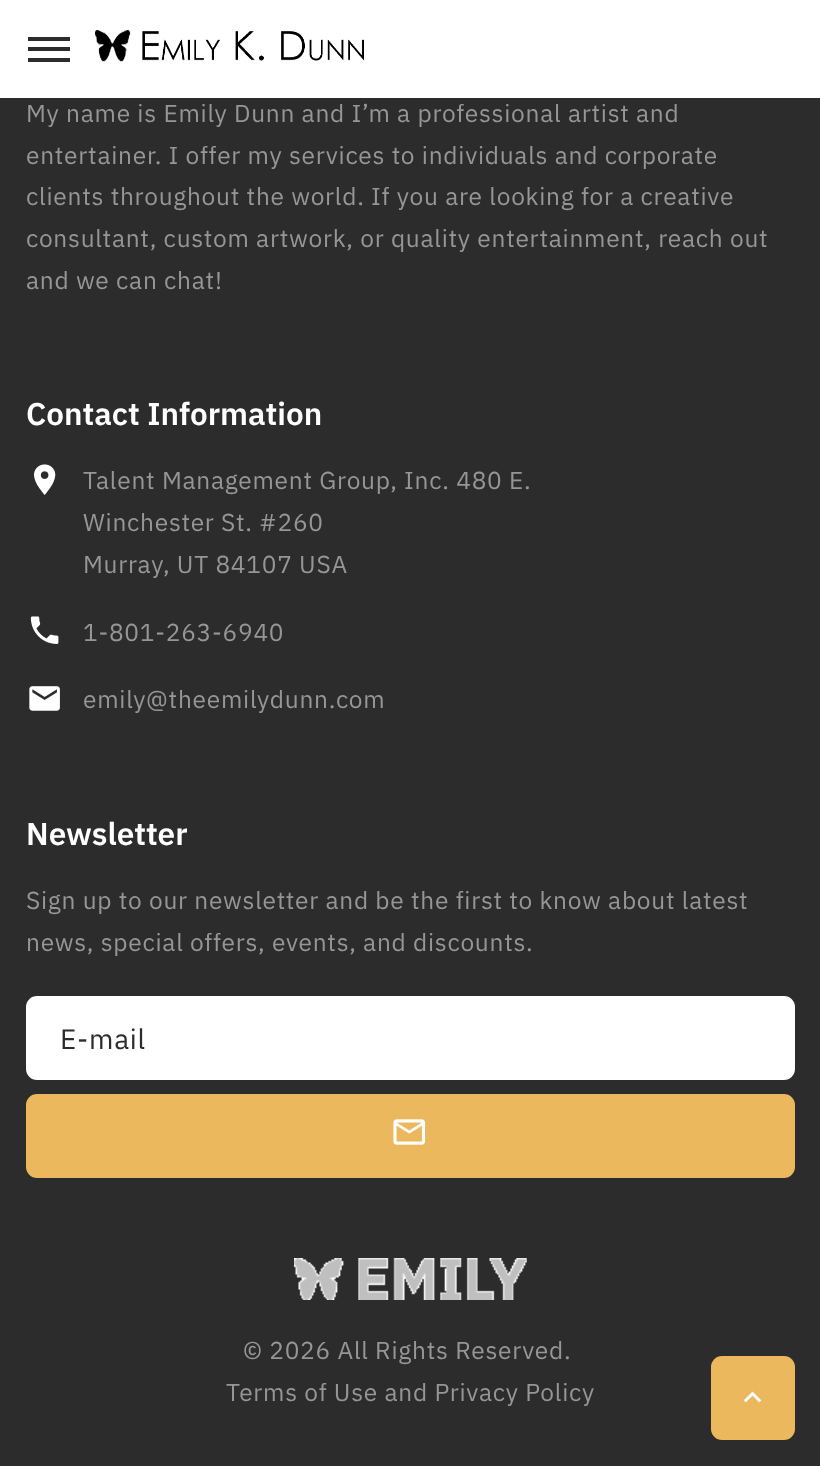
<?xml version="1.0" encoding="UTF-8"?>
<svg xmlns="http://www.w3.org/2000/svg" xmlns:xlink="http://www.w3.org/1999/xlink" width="820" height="1466">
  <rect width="100%" height="100%" fill="#2c2c2c" />
  <rect width="820" height="98" fill="#ffffff" />
  <rect x="28" y="47" width="42" height="4" fill="#2c2c2c" />
  <rect x="28" y="37" width="42" height="4" fill="#2c2c2c" />
  <rect x="28" y="58" width="42" height="4" fill="#2c2c2c" />
  <image x="95" y="30" width="269" height="32" xlink:href="image1.png" />
  <image x="33" y="464" width="23" height="31" xlink:href="image2.png" />
  <image x="30" y="616" width="29" height="28" xlink:href="image3.png" />
  <image x="29" y="686" width="31" height="25" xlink:href="image4.png" />
  <rect x="27" y="997" width="767" height="82" rx="10" fill="#ffffff" stroke="#ffffff" stroke-width="2" />
  <rect x="28" y="1096" width="765" height="80" rx="9" fill="#ebb85e" stroke="#ebb85e" stroke-width="4" />
  <image x="393" y="1119" width="33" height="26" xlink:href="image5.png" />
  <image x="294" y="1258" width="233" height="42" xlink:href="image6.png" />
  <rect x="711" y="1356" width="84" height="84" rx="11" fill="#ebb85e" />
  <image x="743" y="1391" width="19" height="12" xlink:href="image7.png" />
  <text x="26" y="122" style="font-family: IBM Plex Sans; font-size: 24.5px; letter-spacing: 0.73px; fill: #969696">My name is Emily Dunn and I’m a professional artist and</text>
  <text x="26" y="164" style="font-family: IBM Plex Sans; font-size: 24.5px; letter-spacing: 0.73px; fill: #969696">entertainer. I offer my services to individuals and corporate</text>
  <text x="26" y="205" style="font-family: IBM Plex Sans; font-size: 24.5px; letter-spacing: 0.73px; fill: #969696">clients throughout the world. If you are looking for a creative</text>
  <text x="26" y="247" style="font-family: IBM Plex Sans; font-size: 24.5px; letter-spacing: 0.73px; fill: #969696">consultant, custom artwork, or quality entertainment, reach out</text>
  <text x="26" y="289" style="font-family: IBM Plex Sans; font-size: 24.5px; letter-spacing: 0.73px; fill: #969696">and we can chat!</text>
  <text x="26" y="425" style="font-family: IBM Plex Sans; font-size: 31.5px; font-weight: 600; fill: #ffffff">Contact Information</text>
  <text x="83" y="489" style="font-family: IBM Plex Sans; font-size: 24.5px; letter-spacing: 0.73px; fill: #969696">Talent Management Group, Inc. 480 E.</text>
  <text x="83" y="531" style="font-family: IBM Plex Sans; font-size: 24.5px; letter-spacing: 0.73px; fill: #969696">Winchester St. #260</text>
  <text x="83" y="573" style="font-family: IBM Plex Sans; font-size: 24.5px; letter-spacing: 0.73px; fill: #969696">Murray, UT 84107 USA</text>
  <text x="83" y="641" style="font-family: IBM Plex Sans; font-size: 24.5px; letter-spacing: 0.73px; fill: #969696">1-801-263-6940</text>
  <text x="83" y="708" style="font-family: IBM Plex Sans; font-size: 24.5px; letter-spacing: 0.73px; fill: #969696">emily@theemilydunn.com</text>
  <text x="26" y="845" style="font-family: IBM Plex Sans; font-size: 31.5px; font-weight: 600; fill: #ffffff">Newsletter</text>
  <text x="26" y="909" style="font-family: IBM Plex Sans; font-size: 24.5px; letter-spacing: 0.73px; fill: #969696">Sign up to our newsletter and be the first to know about latest</text>
  <text x="26" y="951" style="font-family: IBM Plex Sans; font-size: 24.5px; letter-spacing: 0.73px; fill: #969696">news, special offers, events, and discounts.</text>
  <text x="60" y="1049" style="font-family: IBM Plex Sans; font-size: 28px; letter-spacing: 0.73px; fill: #2c2c2c">E-mail</text>
  <text x="243" y="1359" style="font-family: IBM Plex Sans; font-size: 24.5px; letter-spacing: 0.73px; fill: #969696">© 2026 All Rights Reserved.</text>
  <text x="226" y="1401" style="font-family: IBM Plex Sans; font-size: 24.5px; letter-spacing: 0.73px; fill: #969696">Terms of Use and Privacy Policy</text>
</svg>
